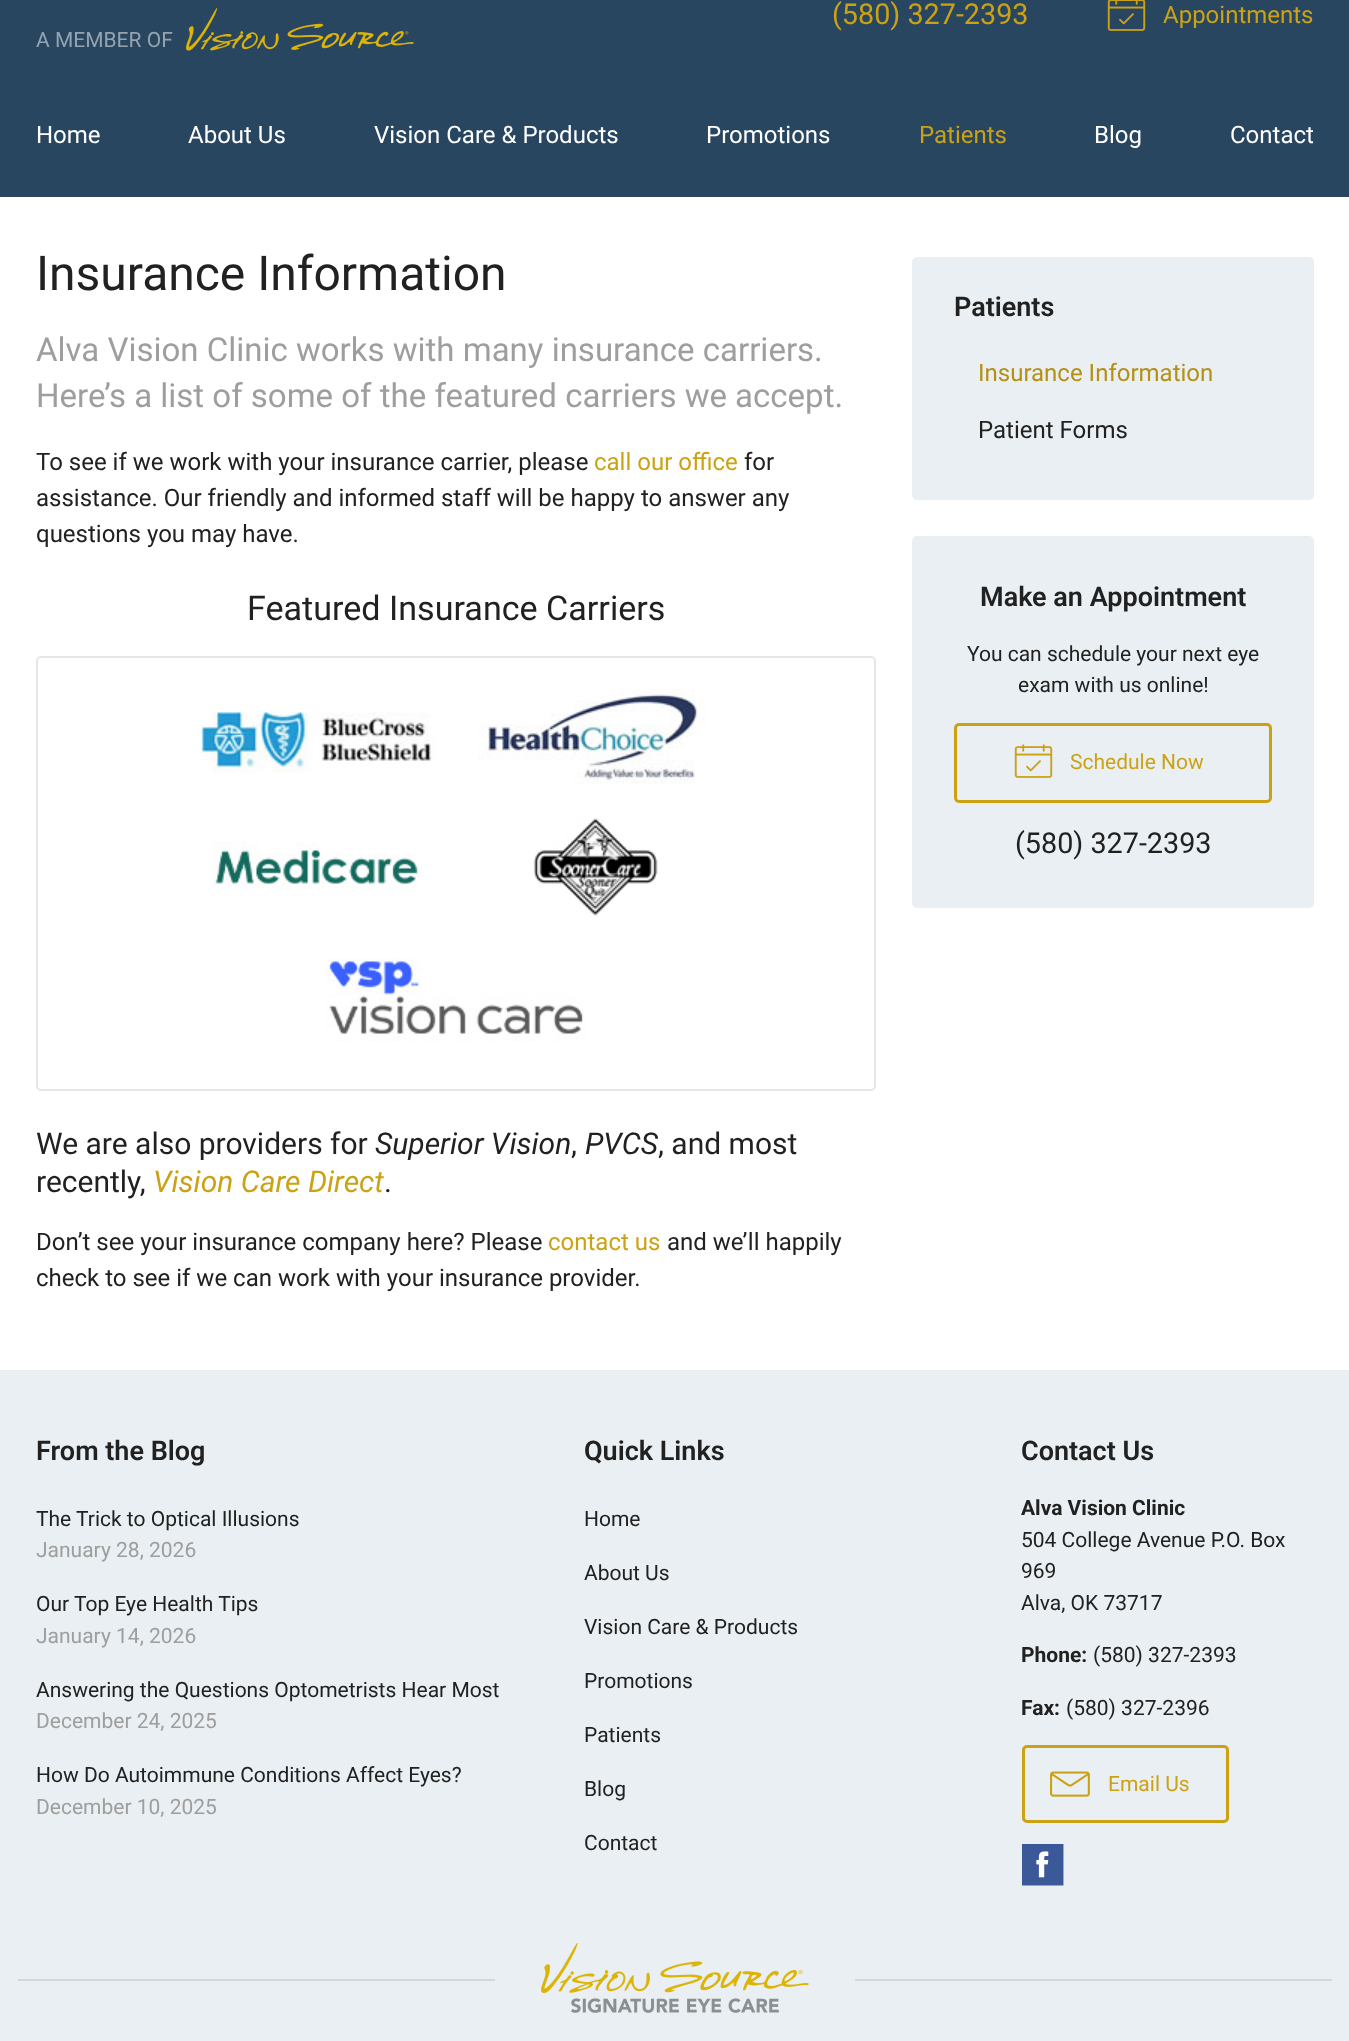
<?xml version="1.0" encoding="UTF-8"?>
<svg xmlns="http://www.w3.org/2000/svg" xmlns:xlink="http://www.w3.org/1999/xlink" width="1349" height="2041">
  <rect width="100%" height="100%" fill="#e9eff2" />
  <rect width="1349" height="197" fill="#294661" />
  <image x="1107" y="0" width="39" height="31" xlink:href="image1.png" />
  <image x="186" y="8" width="228" height="43" xlink:href="image2.png" />
  <rect y="197" width="1349" height="1173" fill="#ffffff" />
  <rect x="37" y="657" width="838" height="433" rx="4" fill="none" stroke="#e6e6e6" stroke-width="2" />
  <image x="199" y="712" width="237" height="61" xlink:href="image3.png" />
  <image x="478" y="689" width="228" height="96" xlink:href="image4.png" />
  <image x="212" y="842" width="212" height="48" xlink:href="image5.png" />
  <image x="533" y="818" width="125" height="98" xlink:href="image6.png" />
  <image x="326" y="958" width="260" height="84" xlink:href="image7.png" />
  <rect x="912" y="257" width="402" height="243" rx="5" fill="#e9eff2" />
  <rect x="912" y="536" width="402" height="372" rx="5" fill="#e9eff2" />
  <rect x="955.5" y="724.5" width="315" height="77" rx="3.5" fill="none" stroke="#cca215" stroke-width="3" />
  <image x="1014" y="744" width="39" height="34" xlink:href="image8.png" />
  <rect x="1023.5" y="1746.5" width="204" height="75" rx="3.5" fill="none" stroke="#cca215" stroke-width="3" />
  <image x="1050" y="1771" width="40" height="26" xlink:href="image9.png" />
  <rect x="1022" y="1844" width="42" height="42" fill="#ffffff" />
  <image x="1022" y="1844" width="42" height="42" xlink:href="image10.png" />
  <rect x="18" y="1979" width="1314" height="2" fill="#d2d7da" />
  <rect x="495" y="1979" width="360" height="2" fill="#e9eff2" />
  <image x="541" y="1943" width="268" height="70" xlink:href="image11.png" />
  <text x="832" y="24" style="font-family: Roboto; font-size: 28.75px; fill: #cca215">(580) 327-2393</text>
  <text x="1163" y="23" style="font-family: Roboto; font-size: 24px; fill: #cca215">Appointments</text>
  <text x="36" y="47" style="font-family: Roboto; font-size: 21px; fill: #94a3b0">A MEMBER OF</text>
  <text x="36" y="143" style="font-family: Roboto; font-size: 24px; fill: #ffffff">Home</text>
  <text x="188" y="143" style="font-family: Roboto; font-size: 24px; fill: #ffffff">About Us</text>
  <text x="374" y="143" style="font-family: Roboto; font-size: 24px; fill: #ffffff">Vision Care &amp; Products</text>
  <text x="706" y="143" style="font-family: Roboto; font-size: 24px; fill: #ffffff">Promotions</text>
  <text x="919" y="143" style="font-family: Roboto; font-size: 24px; fill: #cca215">Patients</text>
  <text x="1094" y="143" style="font-family: Roboto; font-size: 24px; fill: #ffffff">Blog</text>
  <text x="1230" y="143" style="font-family: Roboto; font-size: 24px; fill: #ffffff">Contact</text>
  <text x="36" y="290" style="font-family: Roboto; font-size: 48px; fill: #212121">Insurance Information</text>
  <text x="36" y="361" style="font-family: Roboto; font-size: 33px; fill: #9e9e9e">Alva Vision Clinic works with many insurance carriers.</text>
  <text x="36" y="407" style="font-family: Roboto; font-size: 33px; fill: #9e9e9e">Here’s a list of some of the featured carriers we accept.</text>
  <text x="36" y="470" style="font-family: Roboto; font-size: 24px; fill: #212121">To see if we work with your insurance carrier, please</text>
  <text x="594" y="470" style="font-family: Roboto; font-size: 24px; fill: #cca215">call our office</text>
  <text x="744" y="470" style="font-family: Roboto; font-size: 24px; fill: #212121">for</text>
  <text x="36" y="506" style="font-family: Roboto; font-size: 24px; fill: #212121">assistance. Our friendly and informed staff will be happy to answer any</text>
  <text x="36" y="542" style="font-family: Roboto; font-size: 24px; fill: #212121">questions you may have.</text>
  <text x="247" y="620" style="font-family: Roboto; font-size: 34.1px; fill: #212121">Featured Insurance Carriers</text>
  <text x="36" y="1154" style="font-family: Roboto; font-size: 30px; fill: #212121">We are also providers for</text>
  <text x="375" y="1154" style="font-family: Roboto; font-size: 30px; font-style: italic; fill: #212121">Superior Vision</text>
  <text x="571" y="1154" style="font-family: Roboto; font-size: 30px; fill: #212121">,</text>
  <text x="585" y="1154" style="font-family: Roboto; font-size: 30px; font-style: italic; fill: #212121">PVCS</text>
  <text x="658" y="1154" style="font-family: Roboto; font-size: 30px; fill: #212121">, and most</text>
  <text x="36" y="1192" style="font-family: Roboto; font-size: 30px; fill: #212121">recently,</text>
  <text x="153" y="1192" style="font-family: Roboto; font-size: 30px; font-style: italic; fill: #cca215">Vision Care Direct</text>
  <text x="384" y="1192" style="font-family: Roboto; font-size: 30px; fill: #212121">.</text>
  <text x="36" y="1250" style="font-family: Roboto; font-size: 24px; fill: #212121">Don’t see your insurance company here? Please</text>
  <text x="548" y="1250" style="font-family: Roboto; font-size: 24px; fill: #cca215">contact us</text>
  <text x="667" y="1250" style="font-family: Roboto; font-size: 24px; fill: #212121">and we’ll happily</text>
  <text x="36" y="1286" style="font-family: Roboto; font-size: 24px; fill: #212121">check to see if we can work with your insurance provider.</text>
  <text x="954" y="316" style="font-family: Roboto; font-size: 27px; font-weight: 600; fill: #212121">Patients</text>
  <text x="978" y="381" style="font-family: Roboto; font-size: 24px; fill: #b59013">Insurance Information</text>
  <text x="978" y="438" style="font-family: Roboto; font-size: 24px; fill: #212121">Patient Forms</text>
  <text x="980" y="606" style="font-family: Roboto; font-size: 27px; font-weight: 600; fill: #212121">Make an Appointment</text>
  <text x="967" y="661" style="font-family: Roboto; font-size: 21px; fill: #212121">You can schedule your next eye</text>
  <text x="1018" y="692" style="font-family: Roboto; font-size: 21px; fill: #212121">exam with us online!</text>
  <text x="1070" y="769" style="font-family: Roboto; font-size: 21px; fill: #cca215">Schedule Now</text>
  <text x="1015" y="853" style="font-family: Roboto; font-size: 28.75px; fill: #212121">(580) 327-2393</text>
  <text x="36" y="1460" style="font-family: Roboto; font-size: 27px; font-weight: 600; fill: #212121">From the Blog</text>
  <text x="36" y="1526" style="font-family: Roboto; font-size: 21px; fill: #212121">The Trick to Optical Illusions</text>
  <text x="36" y="1557" style="font-family: Roboto; font-size: 21px; fill: #9e9e9e">January 28, 2026</text>
  <text x="36" y="1611" style="font-family: Roboto; font-size: 21px; fill: #212121">Our Top Eye Health Tips</text>
  <text x="36" y="1643" style="font-family: Roboto; font-size: 21px; fill: #9e9e9e">January 14, 2026</text>
  <text x="36" y="1697" style="font-family: Roboto; font-size: 21px; fill: #212121">Answering the Questions Optometrists Hear Most</text>
  <text x="36" y="1728" style="font-family: Roboto; font-size: 21px; fill: #9e9e9e">December 24, 2025</text>
  <text x="36" y="1782" style="font-family: Roboto; font-size: 21px; fill: #212121">How Do Autoimmune Conditions Affect Eyes?</text>
  <text x="36" y="1814" style="font-family: Roboto; font-size: 21px; fill: #9e9e9e">December 10, 2025</text>
  <text x="584" y="1460" style="font-family: Roboto; font-size: 27px; font-weight: 600; fill: #212121">Quick Links</text>
  <text x="584" y="1526" style="font-family: Roboto; font-size: 21px; fill: #212121">Home</text>
  <text x="584" y="1580" style="font-family: Roboto; font-size: 21px; fill: #212121">About Us</text>
  <text x="584" y="1634" style="font-family: Roboto; font-size: 21px; fill: #212121">Vision Care &amp; Products</text>
  <text x="584" y="1688" style="font-family: Roboto; font-size: 21px; fill: #212121">Promotions</text>
  <text x="584" y="1742" style="font-family: Roboto; font-size: 21px; fill: #212121">Patients</text>
  <text x="584" y="1796" style="font-family: Roboto; font-size: 21px; fill: #212121">Blog</text>
  <text x="584" y="1850" style="font-family: Roboto; font-size: 21px; fill: #212121">Contact</text>
  <text x="1021" y="1460" style="font-family: Roboto; font-size: 27px; font-weight: 600; fill: #212121">Contact Us</text>
  <text x="1021" y="1515" style="font-family: Roboto; font-size: 21px; font-weight: bold; fill: #212121">Alva Vision Clinic</text>
  <text x="1021" y="1547" style="font-family: Roboto; font-size: 21px; fill: #212121">504 College Avenue P.O. Box</text>
  <text x="1021" y="1578" style="font-family: Roboto; font-size: 21px; fill: #212121">969</text>
  <text x="1021" y="1610" style="font-family: Roboto; font-size: 21px; fill: #212121">Alva, OK 73717</text>
  <text x="1021" y="1662" style="font-family: Roboto; font-size: 21px; font-weight: bold; fill: #212121">Phone:</text>
  <text x="1093" y="1662" style="font-family: Roboto; font-size: 21px; fill: #212121">(580) 327-2393</text>
  <text x="1021" y="1715" style="font-family: Roboto; font-size: 21px; font-weight: bold; fill: #212121">Fax:</text>
  <text x="1066" y="1715" style="font-family: Roboto; font-size: 21px; fill: #212121">(580) 327-2396</text>
  <text x="1108" y="1791" style="font-family: Roboto; font-size: 21px; fill: #cca215">Email Us</text>
</svg>
